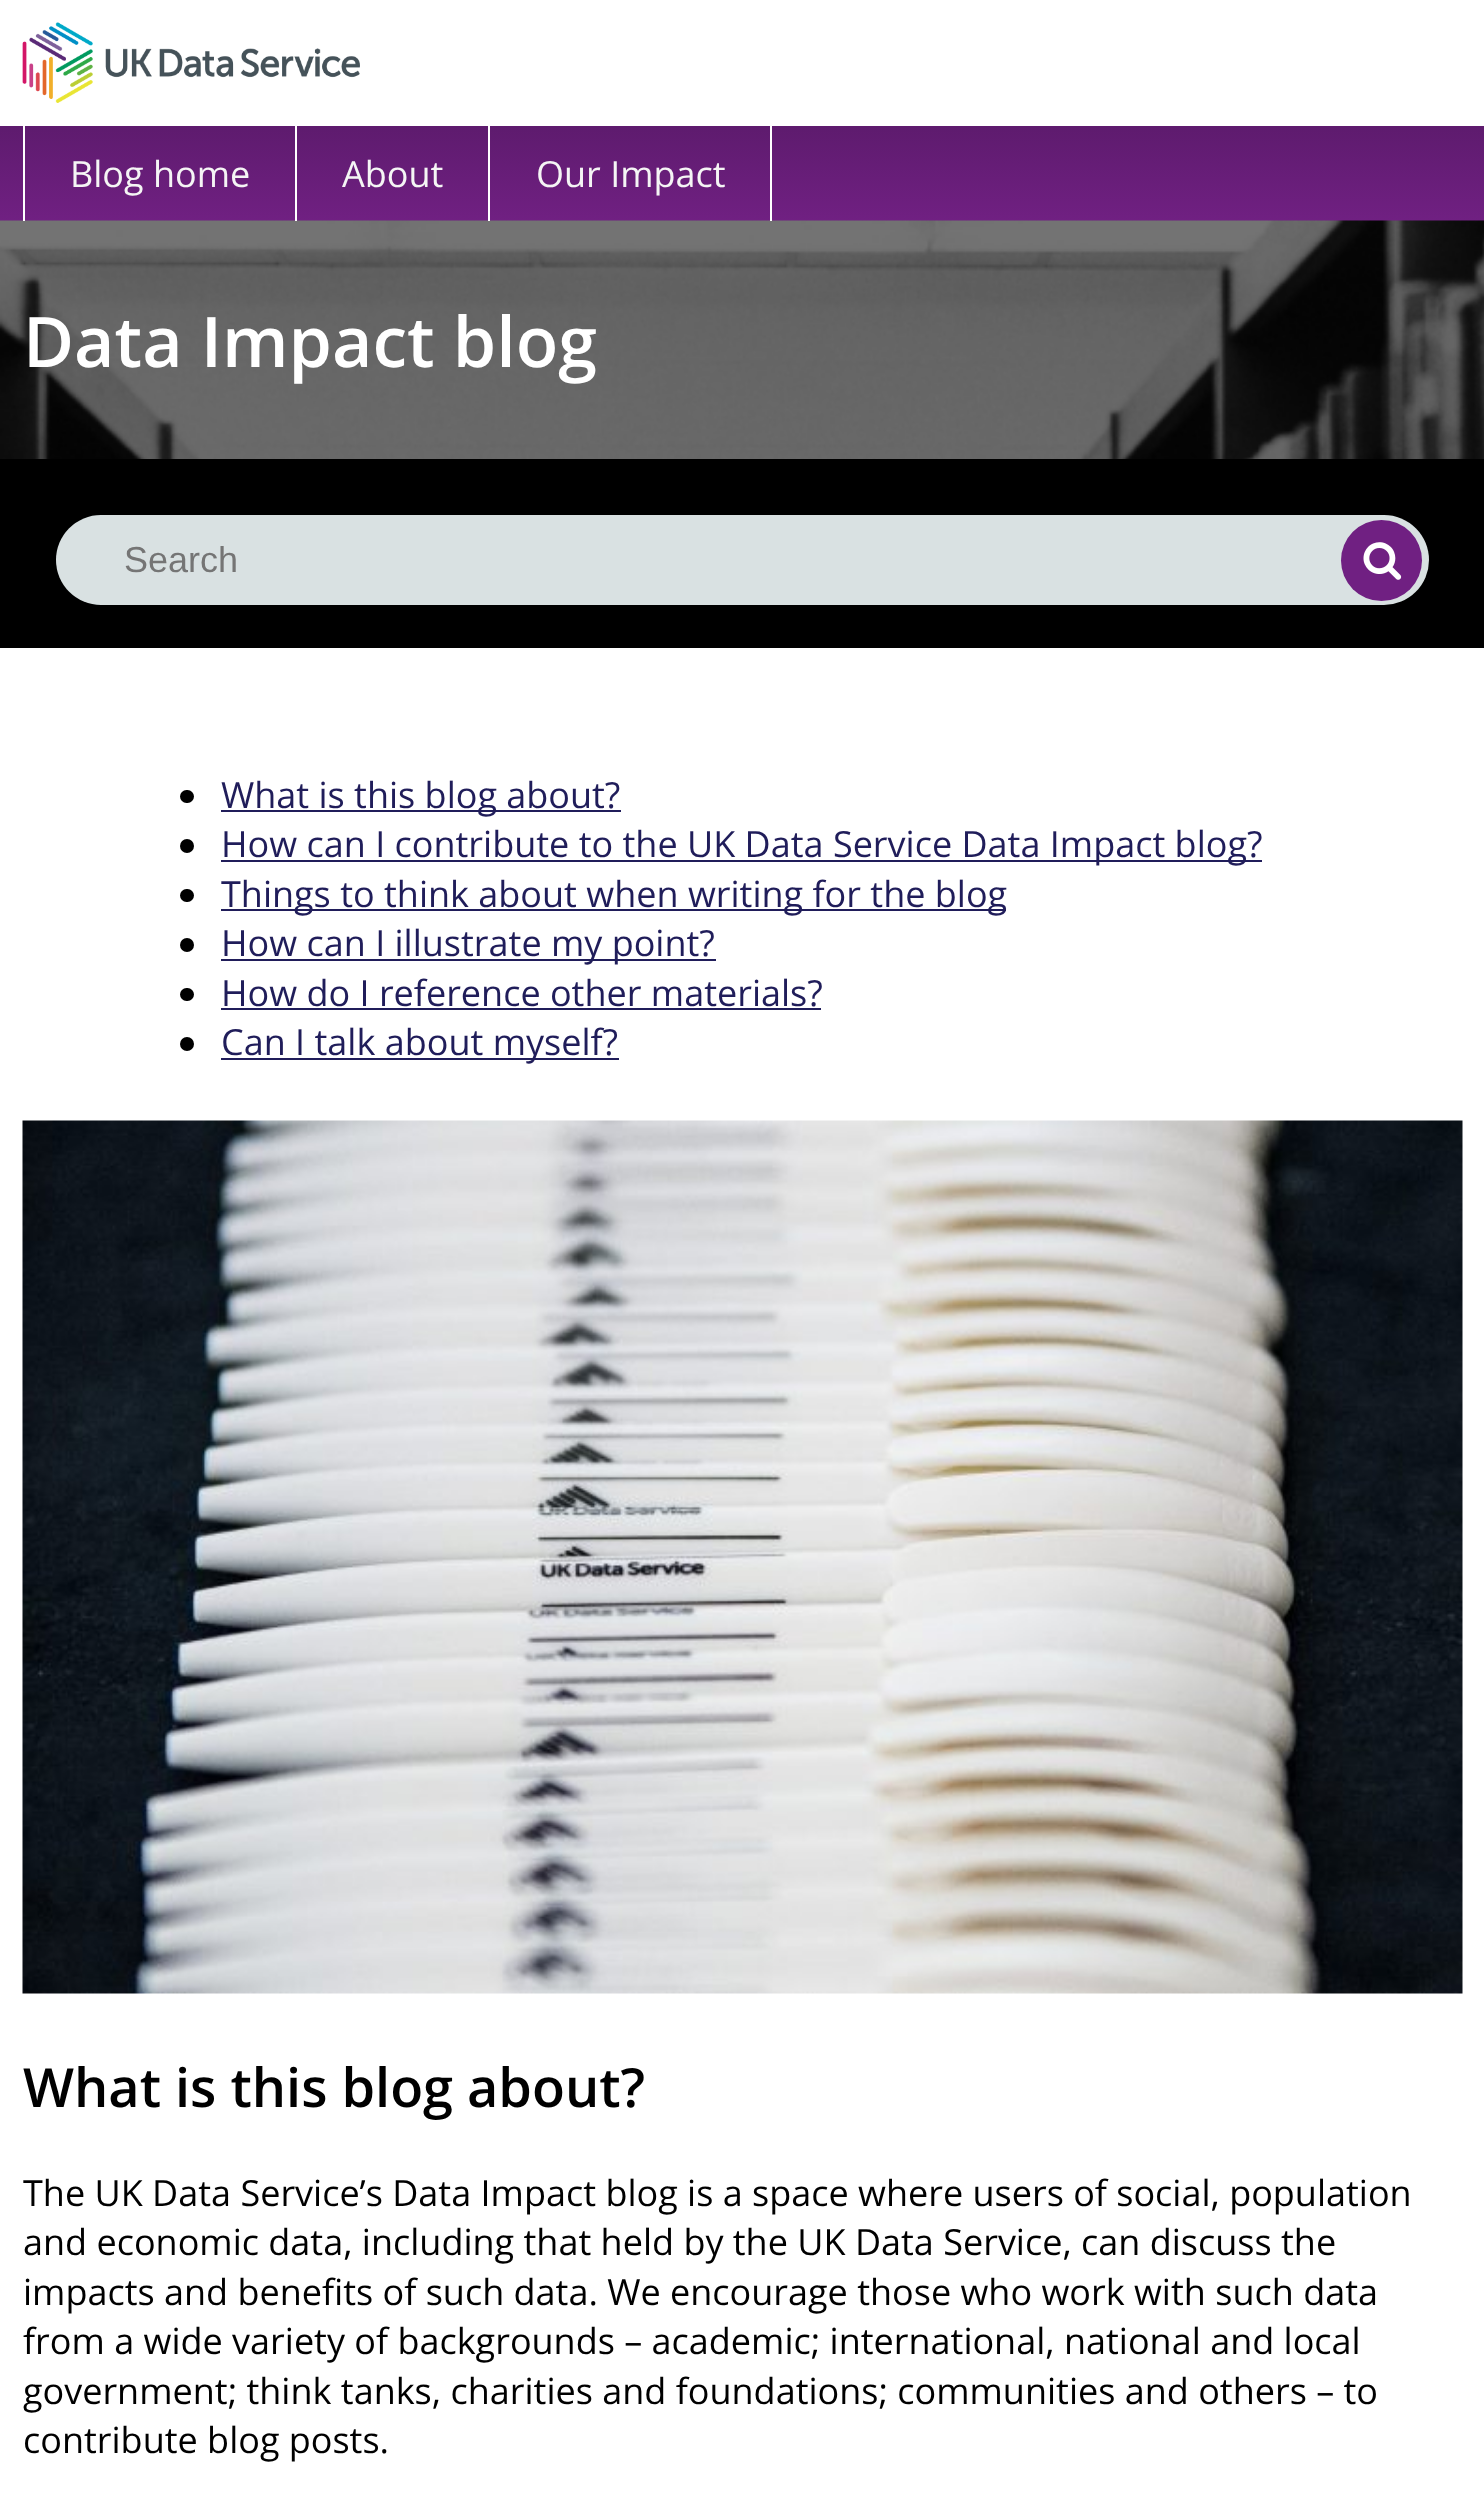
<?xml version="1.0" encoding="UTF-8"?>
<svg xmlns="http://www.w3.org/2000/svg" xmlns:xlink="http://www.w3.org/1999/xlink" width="1484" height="2520">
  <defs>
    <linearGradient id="g1" gradientUnits="userSpaceOnUse" x1="743" y1="221" x2="743" y2="126"><stop offset="0" stop-color="#702082" /><stop offset="1" stop-color="#5e1b6e" /></linearGradient>
  </defs>
  <rect width="100%" height="100%" fill="#ffffff" />
  <image x="22" y="22" width="338" height="81" xlink:href="image1.png" />
  <rect y="126" width="1484" height="95" fill="url(#g1)" />
  <image x="0" y="220" width="1484" height="239" xlink:href="image2.png" />
  <rect x="23" y="126" width="2" height="95" fill="#ffffff" />
  <rect x="295" y="126" width="2" height="95" fill="#ffffff" />
  <rect x="488" y="126" width="2" height="95" fill="#ffffff" />
  <rect x="770" y="126" width="2" height="95" fill="#ffffff" />
  <rect y="459" width="1484" height="189" fill="#000000" />
  <rect x="56" y="515" width="1373" height="90" rx="45" fill="#d9e1e2" />
  <circle cx="1381.5" cy="560.5" r="40.5" fill="#702082" />
  <image x="1363" y="542" width="39" height="38" xlink:href="image3.png" />
  <rect x="180" y="790" width="14" height="13" rx="6.5" fill="#000000" />
  <rect x="221" y="810" width="400" height="2" fill="#201d5a" />
  <circle cx="187" cy="846" r="7" fill="#000000" />
  <rect x="221" y="860" width="1041" height="2" fill="#201d5a" />
  <rect x="180" y="889" width="14" height="13" rx="6.5" fill="#000000" />
  <rect x="221" y="909" width="785" height="2" fill="#201d5a" />
  <circle cx="187" cy="945" r="7" fill="#000000" />
  <rect x="221" y="959" width="495" height="2" fill="#201d5a" />
  <rect x="180" y="988" width="14" height="13" rx="6.5" fill="#000000" />
  <rect x="221" y="1008" width="600" height="2" fill="#201d5a" />
  <circle cx="187" cy="1044" r="7" fill="#000000" />
  <rect x="221" y="1058" width="398" height="2" fill="#201d5a" />
  <image x="22" y="1120" width="1441" height="874" xlink:href="image4.png" />
  <text x="70" y="187" style="font-family: Open Sans; font-size: 36px; fill: #f5f5f5">Blog home</text>
  <text x="342" y="187" style="font-family: Open Sans; font-size: 36px; fill: #f5f5f5">About</text>
  <text x="536" y="187" style="font-family: Open Sans; font-size: 36px; fill: #f5f5f5">Our Impact</text>
  <text x="23" y="367" style="font-family: Open Sans; font-size: 69.75px; font-weight: 600; fill: #ffffff">Data Impact blog</text>
  <text x="124" y="572" style="font-family: Liberation Sans; font-size: 36px; fill: #757575">Search</text>
  <text x="221" y="808" style="font-family: Open Sans; font-size: 36px; fill: #201d5a">What is this blog about?</text>
  <text x="221" y="857" style="font-family: Open Sans; font-size: 36px; fill: #201d5a">How can I contribute to the UK Data Service Data Impact blog?</text>
  <text x="221" y="907" style="font-family: Open Sans; font-size: 36px; fill: #201d5a">Things to think about when writing for the blog</text>
  <text x="221" y="956" style="font-family: Open Sans; font-size: 36px; fill: #201d5a">How can I illustrate my point?</text>
  <text x="221" y="1006" style="font-family: Open Sans; font-size: 36px; fill: #201d5a">How do I reference other materials?</text>
  <text x="221" y="1055" style="font-family: Open Sans; font-size: 36px; fill: #201d5a">Can I talk about myself?</text>
  <text x="23" y="2107" style="font-family: Open Sans; font-size: 54px; font-weight: 600; fill: #000000">What is this blog about?</text>
  <text x="23" y="2206" style="font-family: Open Sans; font-size: 36px; fill: #000000">The UK Data Service’s Data Impact blog is a space where users of social, population</text>
  <text x="23" y="2255" style="font-family: Open Sans; font-size: 36px; fill: #000000">and economic data, including that held by the UK Data Service, can discuss the</text>
  <text x="23" y="2305" style="font-family: Open Sans; font-size: 36px; fill: #000000">impacts and benefits of such data. We encourage those who work with such data</text>
  <text x="23" y="2354" style="font-family: Open Sans; font-size: 36px; fill: #000000">from a wide variety of backgrounds – academic; international, national and local</text>
  <text x="23" y="2404" style="font-family: Open Sans; font-size: 36px; fill: #000000">government; think tanks, charities and foundations; communities and others – to</text>
  <text x="23" y="2453" style="font-family: Open Sans; font-size: 36px; fill: #000000">contribute blog posts.</text>
</svg>
